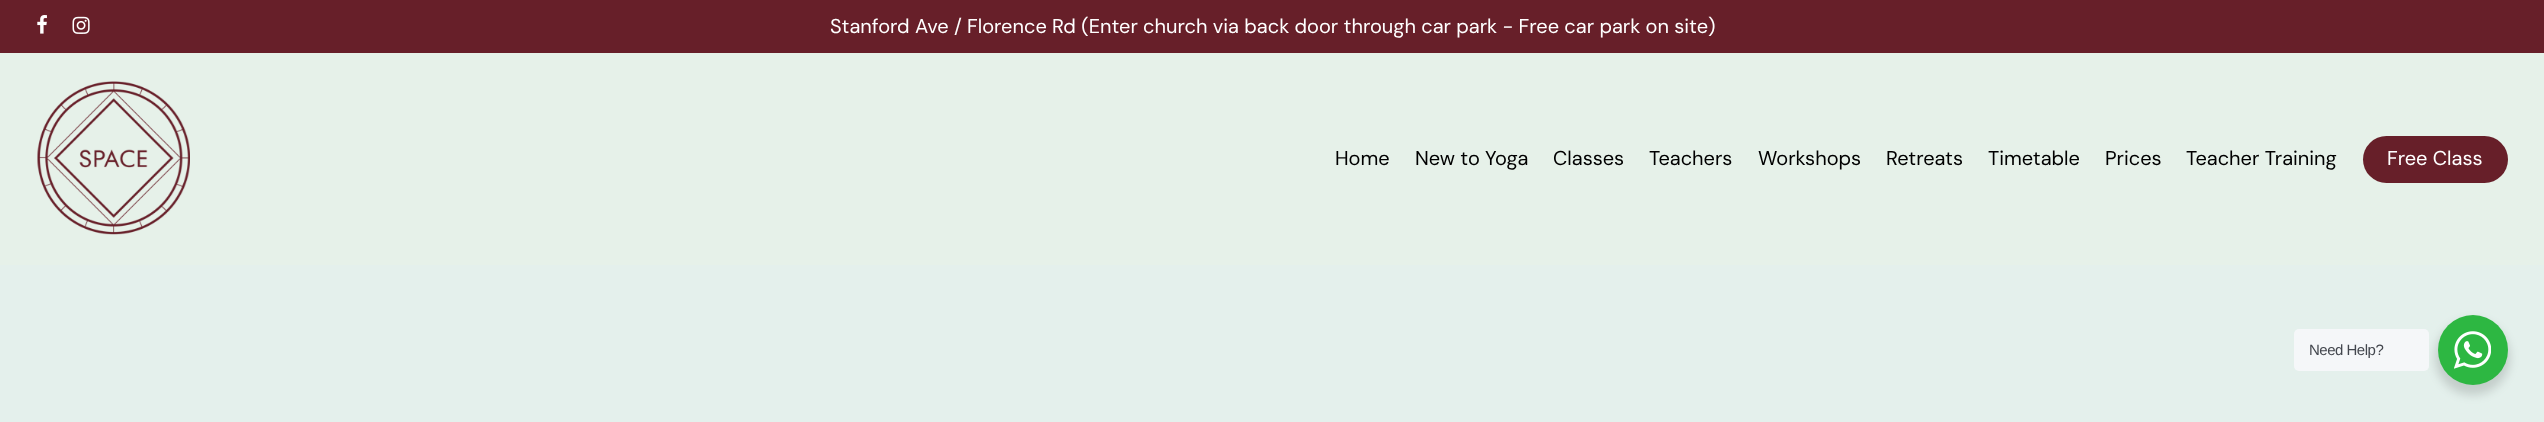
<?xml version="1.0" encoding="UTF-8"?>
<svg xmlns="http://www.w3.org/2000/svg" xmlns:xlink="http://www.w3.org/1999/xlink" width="2544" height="422">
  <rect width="100%" height="100%" fill="#e4f0ec" />
  <rect y="53" width="2544" height="212" fill="#e6f1e9" />
  <rect width="2544" height="53" fill="#671f29" />
  <image x="37" y="15" width="10" height="19" xlink:href="image1.png" />
  <image x="72" y="16" width="18" height="18" xlink:href="image2.png" />
  <image x="37" y="81" width="153" height="154" xlink:href="image3.png" />
  <rect x="2363" y="136" width="145" height="47" rx="23.5" fill="#671f29" />
  <rect x="2435" y="320" width="75" height="75" rx="37.5" fill="#000000" fill-opacity="0.14" filter="blur(5px)" />
  <rect x="2294" y="329" width="135" height="42" rx="5" fill="#f5f7f9" />
  <circle cx="2473" cy="350" r="35" fill="#2db742" />
  <image x="2454" y="331" width="37" height="38" xlink:href="image4.png" />
  <text x="830" y="33" style="font-family: DM Sans; font-size: 20px; fill: #ffffff">Stanford Ave / Florence Rd (Enter church via back door through car park - Free car park on site)</text>
  <text x="1335" y="165" style="font-family: DM Sans; font-size: 20px; fill: #000000">Home</text>
  <text x="1415" y="165" style="font-family: DM Sans; font-size: 20px; fill: #000000">New to Yoga</text>
  <text x="1553" y="165" style="font-family: DM Sans; font-size: 20px; fill: #000000">Classes</text>
  <text x="1649" y="165" style="font-family: DM Sans; font-size: 20px; fill: #000000">Teachers</text>
  <text x="1758" y="165" style="font-family: DM Sans; font-size: 20px; fill: #000000">Workshops</text>
  <text x="1886" y="165" style="font-family: DM Sans; font-size: 20px; fill: #000000">Retreats</text>
  <text x="1988" y="165" style="font-family: DM Sans; font-size: 20px; fill: #000000">Timetable</text>
  <text x="2105" y="165" style="font-family: DM Sans; font-size: 20px; fill: #000000">Prices</text>
  <text x="2186" y="165" style="font-family: DM Sans; font-size: 20px; fill: #000000">Teacher Training</text>
  <text x="2387" y="165" style="font-family: DM Sans; font-size: 20px; fill: #ffffff">Free Class</text>
  <text x="2309" y="355" style="font-family: Liberation Sans; font-size: 15px; letter-spacing: -0.5px; fill: #43474e">Need Help?</text>
</svg>
